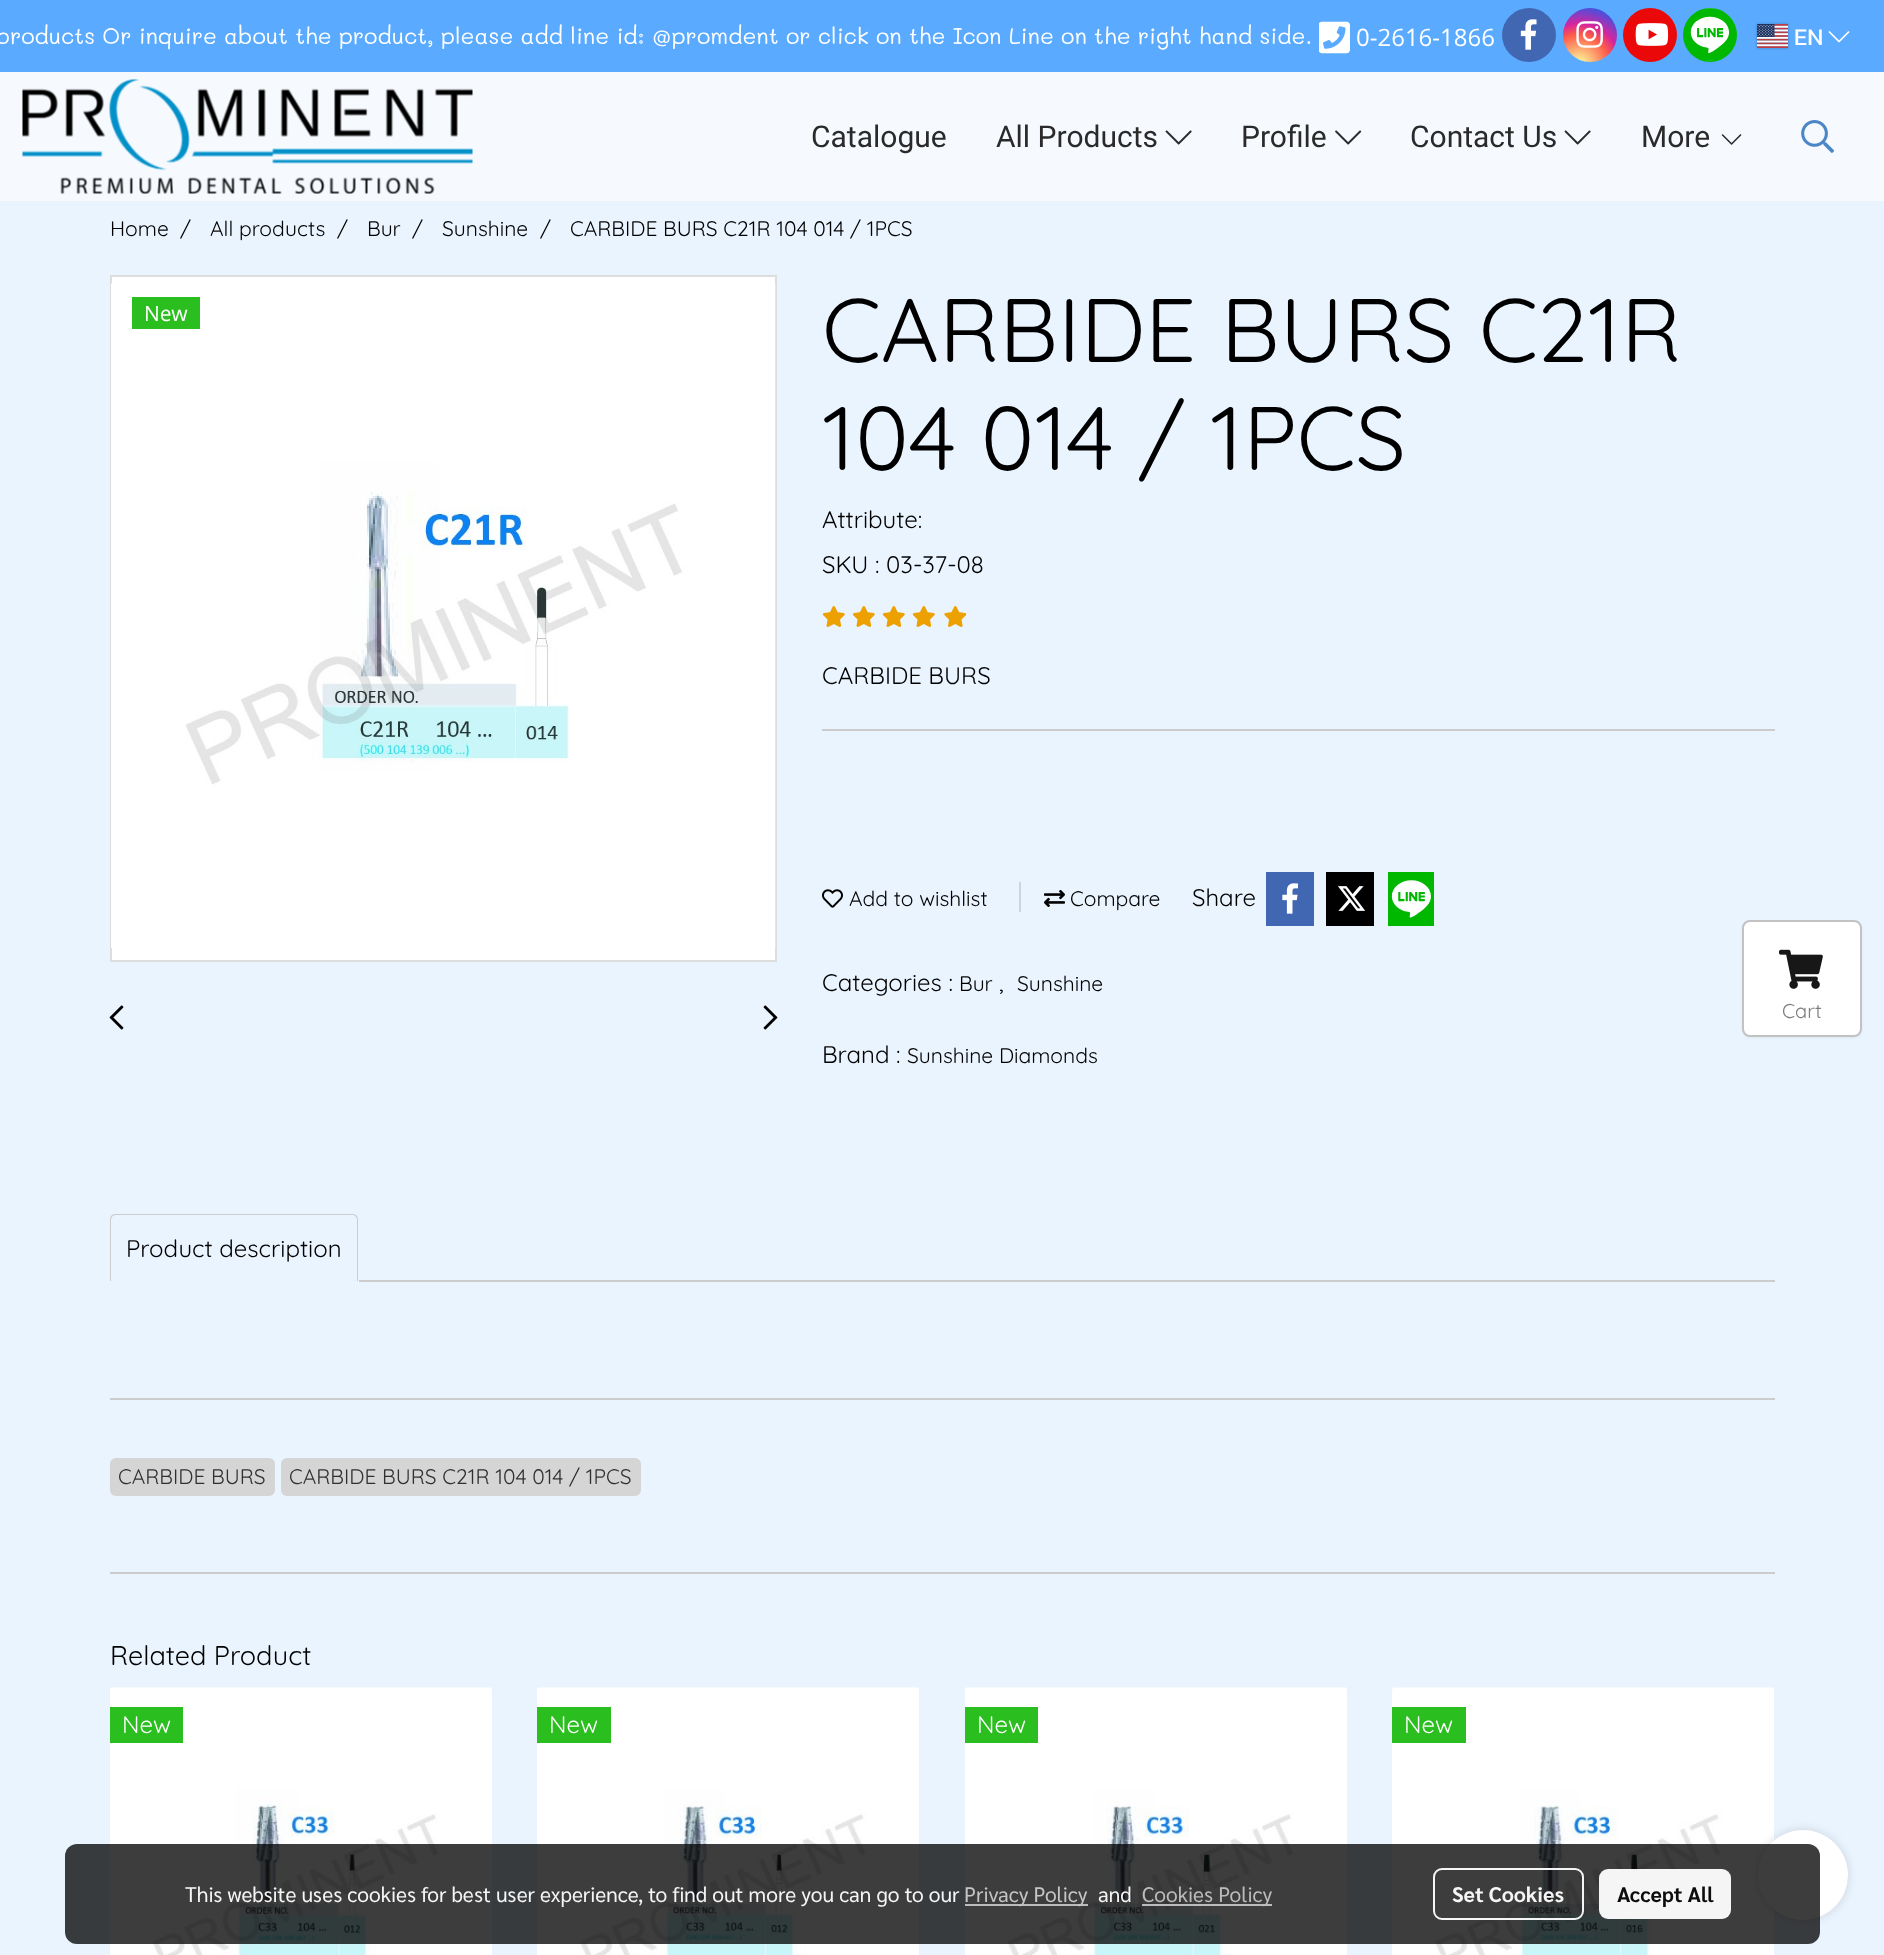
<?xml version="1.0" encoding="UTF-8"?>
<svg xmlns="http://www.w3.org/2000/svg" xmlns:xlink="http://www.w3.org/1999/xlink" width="1884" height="1955">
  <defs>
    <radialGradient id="g1" gradientUnits="userSpaceOnUse" cx="1579" cy="65" r="69"><stop offset="0" stop-color="#fdf497" /><stop offset="0.05" stop-color="#fdf497" /><stop offset="0.45" stop-color="#fd5949" /><stop offset="0.6" stop-color="#d6249f" /><stop offset="0.9" stop-color="#285aeb" /></radialGradient>
  </defs>
  <rect width="100%" height="100%" fill="#eaf4ff" />
  <rect y="72" width="1884" height="129" fill="#f6faff" />
  <rect width="1884" height="72" fill="#5aabff" />
  <image x="1319" y="21" width="31" height="33" xlink:href="image1.png" />
  <circle cx="1529" cy="35" r="27" fill="#4267b2" />
  <image x="1520" y="19" width="17" height="31" xlink:href="image2.png" />
  <circle cx="1590" cy="35" r="27" fill="url(#g1)" />
  <image x="1576" y="21" width="27" height="27" xlink:href="image3.png" />
  <circle cx="1650" cy="35" r="27" fill="#eb0808" />
  <image x="1635" y="23" width="34" height="23" xlink:href="image4.png" />
  <circle cx="1710" cy="35" r="27" fill="#00b800" />
  <image x="1690" y="8" width="39" height="53" xlink:href="image5.png" />
  <rect x="1757" y="24" width="31" height="24" fill="#000000" fill-opacity="0.25" filter="blur(1.5px)" />
  <image x="1757" y="24" width="31" height="24" xlink:href="image6.png" />
  <image x="1828" y="31" width="22" height="12" xlink:href="image7.png" />
  <image x="22" y="79" width="451" height="115" xlink:href="image8.png" />
  <image x="1165" y="130" width="27" height="15" xlink:href="image9.png" />
  <image x="1335" y="130" width="27" height="15" xlink:href="image10.png" />
  <image x="1564" y="130" width="27" height="15" xlink:href="image9.png" />
  <image x="1721" y="134" width="21" height="11" xlink:href="image11.png" />
  <image x="1801" y="120" width="34" height="33" xlink:href="image12.png" />
  <rect x="111" y="276" width="665" height="685" fill="#ffffff" stroke="#dddddd" stroke-width="2" />
  <image x="111" y="283" width="665" height="665" xlink:href="image13.png" />
  <rect x="132" y="297" width="68" height="32" fill="#2bbe1f" />
  <image x="109" y="1005" width="15" height="25" xlink:href="image14.png" />
  <image x="763" y="1005" width="15" height="25" xlink:href="image15.png" />
  <image x="822" y="606" width="23" height="21" xlink:href="image16.png" />
  <image x="852" y="606" width="23" height="21" xlink:href="image16.png" />
  <image x="882" y="606" width="23" height="21" xlink:href="image16.png" />
  <image x="912" y="606" width="23" height="21" xlink:href="image16.png" />
  <image x="944" y="606" width="23" height="21" xlink:href="image17.png" />
  <rect x="822" y="729" width="953" height="2" fill="#cccccc" />
  <image x="822" y="889" width="21" height="19" xlink:href="image18.png" />
  <rect x="1019" y="882" width="2" height="30" fill="#ccd4de" />
  <image x="1044" y="890" width="21" height="17" xlink:href="image19.png" />
  <rect x="1266" y="872" width="48" height="54" fill="#4267b2" />
  <image x="1282" y="883" width="16" height="31" xlink:href="image20.png" />
  <rect x="1326" y="872" width="48" height="54" fill="#000000" />
  <image x="1338" y="886" width="28" height="25" xlink:href="image21.png" />
  <rect x="1388" y="872" width="46" height="54" fill="#00b800" />
  <image x="1391" y="880" width="40" height="38" xlink:href="image22.png" />
  <path d="M 116 1214 h 236 c 4 0 6 2 6 6 v 61 h -248 v -61 c 0 -4 2 -6 6 -6 z m 0 1 h 236 c 3 0 5 2 5 5 v 61 h -246 v -61 c 0 -3 2 -5 5 -5 z" fill="#cccccc" fill-rule="evenodd" />
  <rect x="359" y="1280" width="1416" height="2" fill="#cccccc" />
  <rect x="110" y="1398" width="1665" height="2" fill="#cccccc" />
  <rect x="110" y="1458" width="165" height="38" rx="6" fill="#d5d5d5" />
  <rect x="281" y="1458" width="360" height="38" rx="6" fill="#d5d5d5" />
  <rect x="110" y="1572" width="1665" height="2" fill="#cccccc" />
  <image x="110" y="1687" width="382" height="268" xlink:href="image23.png" />
  <rect x="110" y="1707" width="73" height="36" fill="#2bbe1f" />
  <image x="537" y="1687" width="382" height="268" xlink:href="image24.png" />
  <rect x="537" y="1707" width="74" height="36" fill="#2bbe1f" />
  <image x="965" y="1687" width="382" height="268" xlink:href="image25.png" />
  <rect x="965" y="1707" width="73" height="36" fill="#2bbe1f" />
  <image x="1392" y="1687" width="382" height="268" xlink:href="image26.png" />
  <rect x="1392" y="1707" width="74" height="36" fill="#2bbe1f" />
  <rect x="1742" y="921" width="120" height="117" rx="8" fill="#000000" fill-opacity="0.05" filter="blur(1px)" />
  <rect x="1743" y="921" width="118" height="115" rx="7" fill="#ffffff" stroke="#c2c2c2" stroke-width="2" />
  <image x="1779" y="949" width="44" height="40" xlink:href="image27.png" />
  <rect x="1758" y="1830" width="90" height="90" rx="45" fill="#000000" fill-opacity="0.14" filter="blur(5px)" />
  <circle cx="1803" cy="1875" r="45" fill="#ffffff" />
  <rect x="65" y="1844" width="1755" height="100" rx="12" fill="#000000" fill-opacity="0.76" />
  <rect x="965" y="1904" width="123" height="2" fill="#c2c2c2" fill-opacity="0.95" />
  <rect x="1142" y="1904" width="130" height="2" fill="#c2c2c2" fill-opacity="0.95" />
  <rect x="1434" y="1869" width="149" height="50" rx="8" fill="none" stroke="#ffffff" stroke-opacity="0.95" stroke-width="2" />
  <rect x="1599" y="1869" width="132" height="50" rx="9" fill="#ffffff" fill-opacity="0.95" />
  <text x="-4" y="44" style="font-family: Mali; font-size: 22.5px; fill: #ffffff">products Or inquire about the product, please add line id: @promdent or click on the Icon Line on the right hand side.</text>
  <text x="1356" y="46" style="font-family: Open Sans; font-size: 24px; fill: #ffffff">0-2616-1866</text>
  <text x="1794" y="45" style="font-family: Kanit; font-size: 24px; fill: #ffffff">EN</text>
  <text x="811" y="147" style="font-family: Roboto; font-size: 30px; fill: #2a2a2a">Catalogue</text>
  <text x="996" y="147" style="font-family: Roboto; font-size: 30px; fill: #2a2a2a">All Products</text>
  <text x="1241" y="147" style="font-family: Roboto; font-size: 30px; fill: #2a2a2a">Profile</text>
  <text x="1410" y="147" style="font-family: Roboto; font-size: 30px; fill: #2a2a2a">Contact Us</text>
  <text x="1641" y="147" style="font-family: Roboto; font-size: 30px; fill: #2a2a2a">More</text>
  <text x="110" y="236" style="font-family: Quicksand; font-size: 21px; font-weight: 300; fill: #000000">Home</text>
  <text x="180" y="236" style="font-family: Quicksand; font-size: 21px; font-weight: 300; fill: #000000">/</text>
  <text x="210" y="236" style="font-family: Quicksand; font-size: 21px; font-weight: 300; fill: #000000">All products</text>
  <text x="337" y="236" style="font-family: Quicksand; font-size: 21px; font-weight: 300; fill: #000000">/</text>
  <text x="367" y="236" style="font-family: Quicksand; font-size: 21px; font-weight: 300; fill: #000000">Bur</text>
  <text x="412" y="236" style="font-family: Quicksand; font-size: 21px; font-weight: 300; fill: #000000">/</text>
  <text x="442" y="236" style="font-family: Quicksand; font-size: 21px; font-weight: 300; fill: #000000">Sunshine</text>
  <text x="540" y="236" style="font-family: Quicksand; font-size: 21px; font-weight: 300; fill: #000000">/</text>
  <text x="570" y="236" style="font-family: Quicksand; font-size: 21px; font-weight: 300; fill: #000000">CARBIDE BURS C21R 104 014 / 1PCS</text>
  <text x="144" y="321" style="font-family: Open Sans; font-size: 21px; fill: #ffffff">New</text>
  <text x="822" y="362" style="font-family: Quicksand; font-size: 90px; font-weight: 300; fill: #000000">CARBIDE BURS C21R</text>
  <text x="822" y="470" style="font-family: Quicksand; font-size: 90px; font-weight: 300; fill: #000000">104 014 / 1PCS</text>
  <text x="822" y="528" style="font-family: Quicksand; font-size: 24px; font-weight: 300; fill: #000000">Attribute:</text>
  <text x="822" y="573" style="font-family: Quicksand; font-size: 24px; font-weight: 300; fill: #000000">SKU : 03-37-08</text>
  <text x="822" y="684" style="font-family: Quicksand; font-size: 24px; font-weight: 300; fill: #000000">CARBIDE BURS</text>
  <text x="849" y="906" style="font-family: Quicksand; font-size: 21px; font-weight: 300; fill: #000000">Add to wishlist</text>
  <text x="1070" y="906" style="font-family: Quicksand; font-size: 21px; font-weight: 300; fill: #000000">Compare</text>
  <text x="1192" y="906" style="font-family: Quicksand; font-size: 24px; font-weight: 300; fill: #000000">Share</text>
  <text x="822" y="991" style="font-family: Quicksand; font-size: 24px; font-weight: 300; fill: #000000">Categories :</text>
  <text x="959" y="991" style="font-family: Quicksand; font-size: 21px; font-weight: 300; fill: #000000">Bur</text>
  <text x="999" y="991" style="font-family: Quicksand; font-size: 24px; font-weight: 300; fill: #000000">,</text>
  <text x="1017" y="991" style="font-family: Quicksand; font-size: 21px; font-weight: 300; fill: #000000">Sunshine</text>
  <text x="822" y="1063" style="font-family: Quicksand; font-size: 24px; font-weight: 300; fill: #000000">Brand :</text>
  <text x="907" y="1063" style="font-family: Quicksand; font-size: 21px; font-weight: 300; fill: #000000">Sunshine Diamonds</text>
  <text x="126" y="1257" style="font-family: Quicksand; font-size: 24px; font-weight: 300; fill: #000000">Product description</text>
  <text x="118" y="1484" style="font-family: Quicksand; font-size: 21px; font-weight: 300; fill: #303030">CARBIDE BURS</text>
  <text x="289" y="1484" style="font-family: Quicksand; font-size: 21px; font-weight: 300; fill: #303030">CARBIDE BURS C21R 104 014 / 1PCS</text>
  <text x="110" y="1665" style="font-family: Quicksand; font-size: 27px; font-weight: 300; fill: #000000">Related Product</text>
  <text x="122" y="1733" style="font-family: Quicksand; font-size: 24px; font-weight: 300; fill: #ffffff">New</text>
  <text x="549" y="1733" style="font-family: Quicksand; font-size: 24px; font-weight: 300; fill: #ffffff">New</text>
  <text x="977" y="1733" style="font-family: Quicksand; font-size: 24px; font-weight: 300; fill: #ffffff">New</text>
  <text x="1404" y="1733" style="font-family: Quicksand; font-size: 24px; font-weight: 300; fill: #ffffff">New</text>
  <text x="1782" y="1018" style="font-family: Quicksand; font-size: 20px; font-weight: 300; fill: #7d7d7d">Cart</text>
  <text x="185" y="1902" style="font-family: Sarabun; font-size: 21px; fill: #f5f5f5">This website uses cookies for best user experience, to find out more you can go to our</text>
  <text x="964" y="1902" style="font-family: Sarabun; font-size: 21px; fill: #c5c5c5">Privacy Policy</text>
  <text x="1098" y="1902" style="font-family: Sarabun; font-size: 21px; fill: #f5f5f5">and</text>
  <text x="1142" y="1902" style="font-family: Sarabun; font-size: 21px; fill: #bbbbbb">Cookies Policy</text>
  <text x="1452" y="1902" style="font-family: Sarabun; font-size: 21px; font-weight: bold; fill: #f5f5f5">Set Cookies</text>
  <text x="1617" y="1902" style="font-family: Sarabun; font-size: 21px; font-weight: bold; fill: #0c0c0c">Accept All</text>
</svg>
